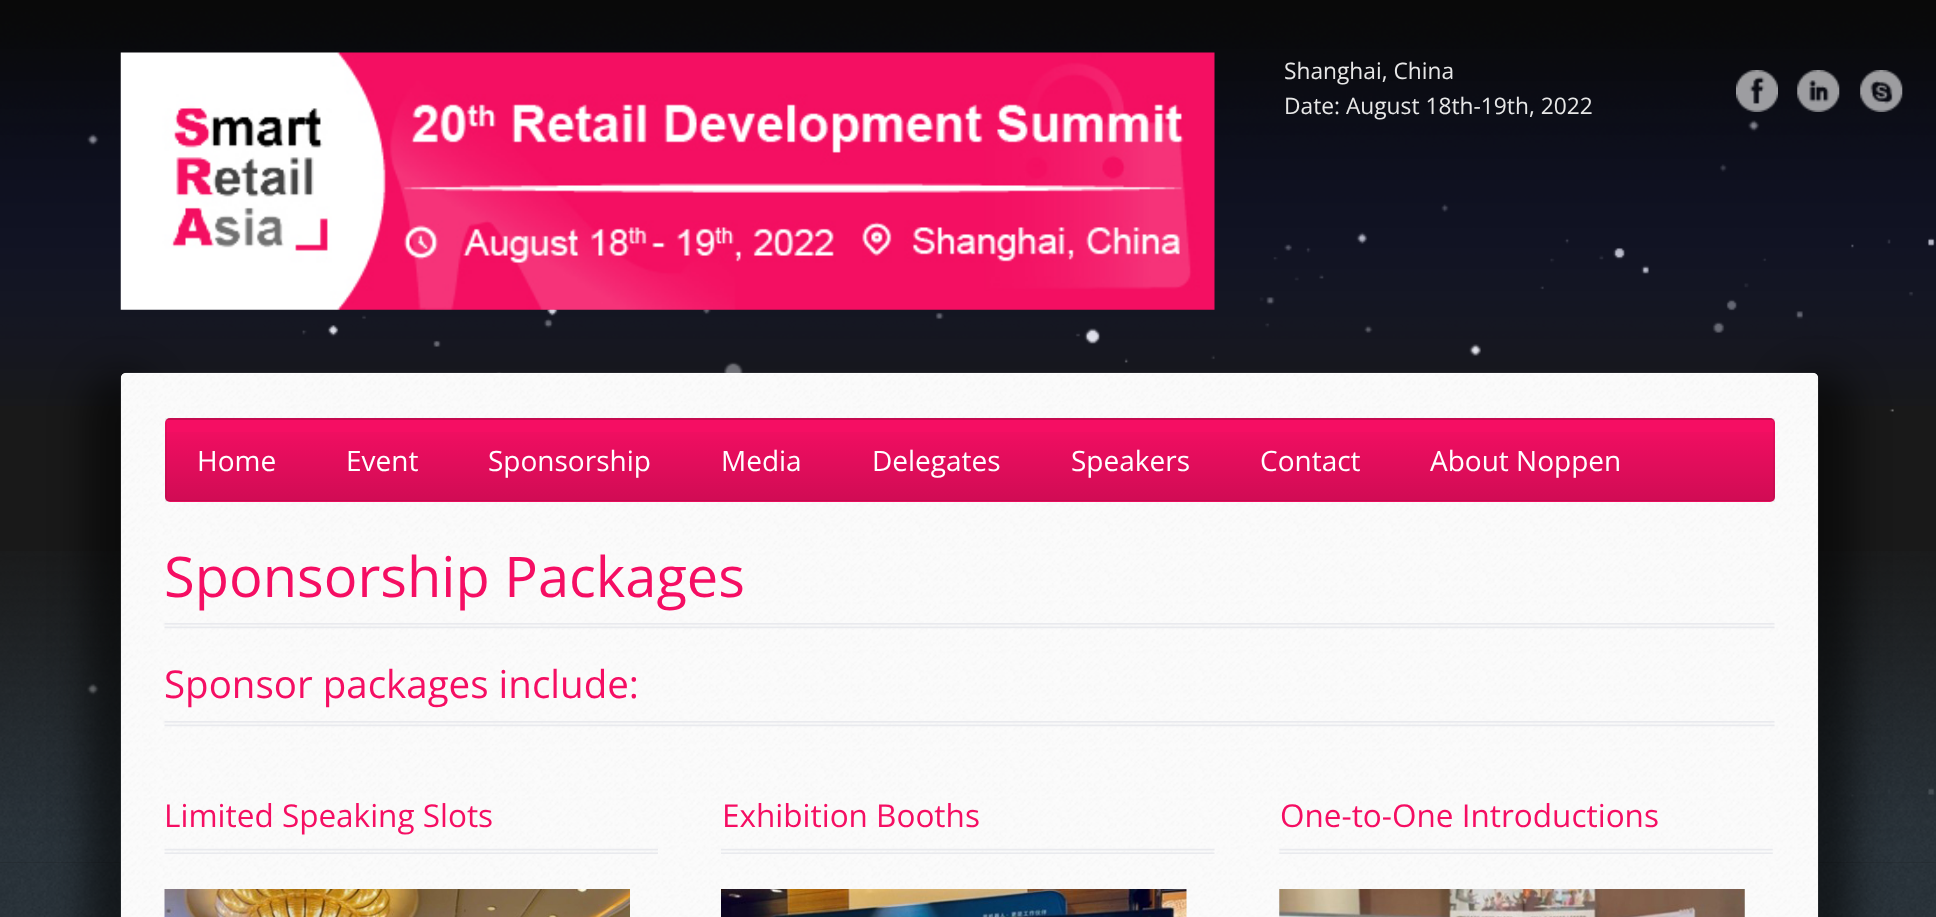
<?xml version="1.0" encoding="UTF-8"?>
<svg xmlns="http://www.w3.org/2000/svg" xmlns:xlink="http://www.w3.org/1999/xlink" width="1936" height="917">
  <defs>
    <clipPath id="clip1"><rect x="165" y="418" width="1610" height="84" rx="5" /></clipPath>
    <linearGradient id="g1" gradientUnits="userSpaceOnUse" x1="970" y1="339" x2="970" y2="420"><stop offset="0" stop-color="#000000" stop-opacity="0" /><stop offset="1" stop-color="#000000" stop-opacity="0.15" /></linearGradient>
    <linearGradient id="g2" gradientUnits="userSpaceOnUse" x1="970" y1="420" x2="970" y2="501"><stop offset="0" stop-color="#000000" stop-opacity="0" /><stop offset="1" stop-color="#000000" stop-opacity="0.15" /></linearGradient>
  </defs>
  <rect width="100%" height="100%" fill="#191919" />
  <image x="87" y="120" width="1849" height="726" xlink:href="image1.png" />
  <image x="0" y="0" width="1936" height="406" xlink:href="image2.png" />
  <image x="120" y="52" width="1095" height="258" xlink:href="image3.png" />
  <image x="0" y="551" width="1936" height="312" xlink:href="image4.png" />
  <image x="1736" y="70" width="42" height="42" xlink:href="image5.png" />
  <image x="1797" y="70" width="43" height="42" xlink:href="image6.png" />
  <image x="1860" y="70" width="43" height="42" xlink:href="image7.png" />
  <image x="0" y="862" width="1936" height="55" xlink:href="image8.png" />
  <rect x="86" y="373" width="70" height="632" rx="35" fill="#000000" fill-opacity="0.5" filter="blur(17.5px)" />
  <rect x="1783" y="373" width="70" height="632" rx="35" fill="#000000" fill-opacity="0.5" filter="blur(17.5px)" />
  <image x="120" y="372" width="1699" height="545" xlink:href="image9.png" />
  <path d="M 126 374 h 1687 c 3 0 5 3 5 6 c 0 -3 -1 -7 -5 -7 h -1687 c -4 0 -5 4 -5 7 c 0 -3 2 -6 5 -6 z" fill="#ffffff" fill-opacity="0.7" />
  <rect x="165" y="418" width="1610" height="84" rx="5" fill="#f50e63" />
  <g clip-path="url(#clip1)">
    <rect x="165" y="418" width="1610" height="2" fill="url(#g1)" />
    <rect x="165" y="432" width="1610" height="69" fill="url(#g2)" />
  </g>
  <rect x="166" y="419" width="1608" height="82" fill="none" stroke="#000000" stroke-opacity="0.05" stroke-width="2" />
  <image x="164" y="623" width="1611" height="6" xlink:href="image10.png" />
  <image x="164" y="721" width="1611" height="6" xlink:href="image10.png" />
  <image x="164" y="848" width="494" height="6" xlink:href="image11.png" />
  <image x="164" y="889" width="466" height="28" xlink:href="image12.png" />
  <image x="721" y="848" width="494" height="6" xlink:href="image13.png" />
  <image x="721" y="889" width="466" height="28" xlink:href="image14.png" />
  <image x="1279" y="848" width="494" height="6" xlink:href="image15.png" />
  <image x="1279" y="889" width="466" height="28" xlink:href="image16.png" />
  <text x="1284" y="79" style="font-family: Open Sans; font-size: 22.75px; fill: #e7e7e7">Shanghai, China</text>
  <text x="1284" y="114" style="font-family: Open Sans; font-size: 22.75px; fill: #e7e7e7">Date: August 18th-19th, 2022</text>
  <text x="197" y="471" style="font-family: Open Sans; font-size: 28px; fill: #ffffff">Home</text>
  <text x="346" y="471" style="font-family: Open Sans; font-size: 28px; fill: #ffffff">Event</text>
  <text x="488" y="471" style="font-family: Open Sans; font-size: 28px; fill: #ffffff">Sponsorship</text>
  <text x="721" y="471" style="font-family: Open Sans; font-size: 28px; fill: #ffffff">Media</text>
  <text x="872" y="471" style="font-family: Open Sans; font-size: 28px; fill: #ffffff">Delegates</text>
  <text x="1071" y="471" style="font-family: Open Sans; font-size: 28px; fill: #ffffff">Speakers</text>
  <text x="1260" y="471" style="font-family: Open Sans; font-size: 28px; fill: #ffffff">Contact</text>
  <text x="1430" y="471" style="font-family: Open Sans; font-size: 28px; fill: #ffffff">About Noppen</text>
  <text x="164" y="597" style="font-family: Open Sans; font-size: 56px; fill: #f50e63">Sponsorship Packages</text>
  <text x="164" y="698" style="font-family: Open Sans; font-size: 38.5px; fill: #f50e63">Sponsor packages include:</text>
  <text x="164" y="827" style="font-family: Open Sans; font-size: 31.5px; fill: #f50e63">Limited Speaking Slots</text>
  <text x="722" y="827" style="font-family: Open Sans; font-size: 31.5px; fill: #f50e63">Exhibition Booths</text>
  <text x="1280" y="827" style="font-family: Open Sans; font-size: 31.5px; fill: #f50e63">One-to-One Introductions</text>
</svg>
